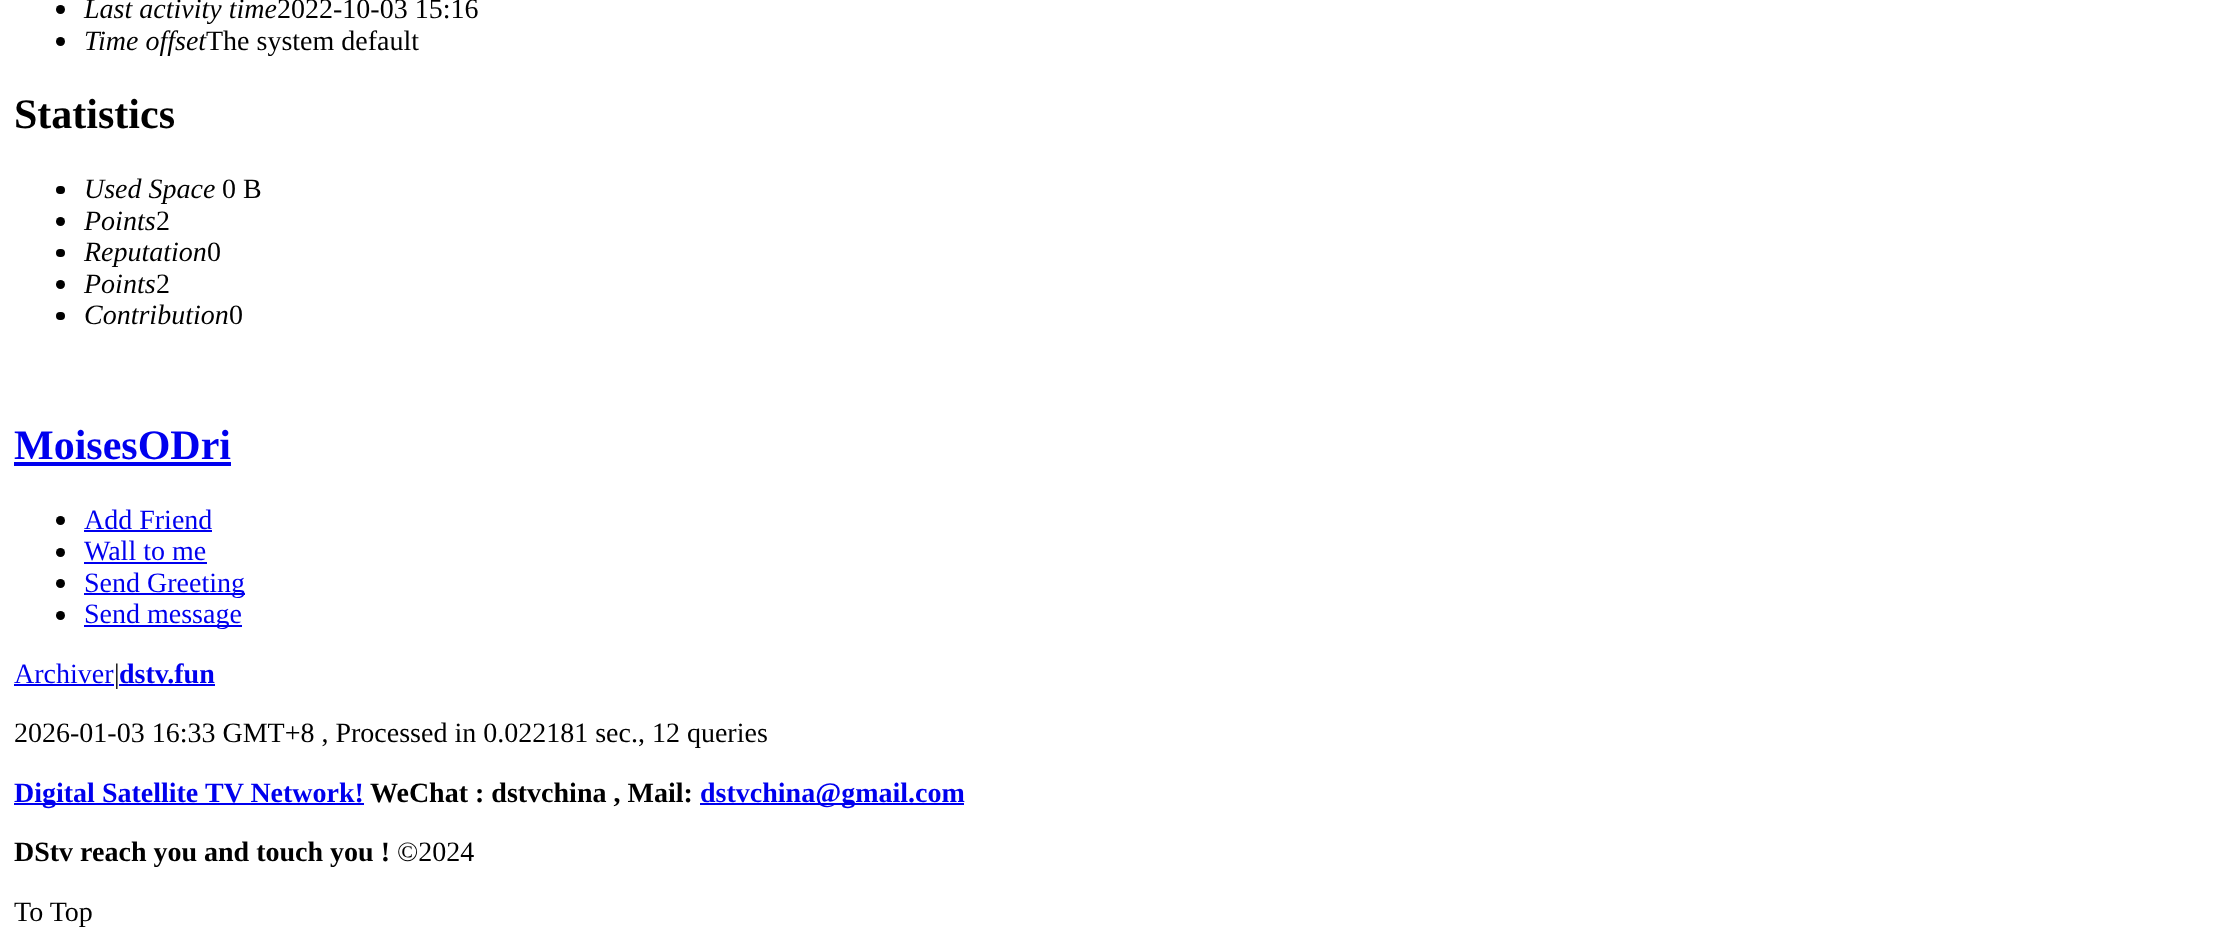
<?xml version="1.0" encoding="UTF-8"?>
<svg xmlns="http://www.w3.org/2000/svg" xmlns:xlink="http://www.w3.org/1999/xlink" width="2226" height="941">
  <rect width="100%" height="100%" fill="#ffffff" />
  <circle cx="60.5" cy="9.5" r="4.5" fill="#000000" />
  <circle cx="60.5" cy="41.5" r="4.5" fill="#000000" />
  <rect x="56" y="186" width="9" height="8" rx="4" fill="#000000" />
  <circle cx="60.5" cy="221.5" r="4.5" fill="#000000" />
  <rect x="56" y="249" width="9" height="8" rx="4" fill="#000000" />
  <circle cx="60.5" cy="284.5" r="4.5" fill="#000000" />
  <rect x="56" y="312" width="9" height="8" rx="4" fill="#000000" />
  <rect x="14" y="462" width="217" height="4" fill="#0000ee" />
  <circle cx="60.5" cy="520.5" r="4.5" fill="#000000" />
  <rect x="84" y="530" width="128" height="2" fill="#0000ee" />
  <circle cx="60.5" cy="552.5" r="4.5" fill="#000000" />
  <rect x="84" y="562" width="123" height="2" fill="#0000ee" />
  <circle cx="60.5" cy="583.5" r="4.5" fill="#000000" />
  <rect x="84" y="593" width="161" height="2" fill="#0000ee" />
  <circle cx="60.5" cy="615.5" r="4.5" fill="#000000" />
  <rect x="84" y="625" width="158" height="2" fill="#0000ee" />
  <rect x="14" y="684" width="100" height="2" fill="#0000ee" />
  <rect x="119" y="684" width="96" height="2" fill="#0000ee" />
  <rect x="14" y="803" width="350" height="2" fill="#0000ee" />
  <rect x="700" y="803" width="264" height="2" fill="#0000ee" />
  <text x="84" y="18" style="font-family: Liberation Serif; font-size: 28px; font-style: italic; fill: #000000">Last activity time</text>
  <text x="277" y="18" style="font-family: Liberation Serif; font-size: 28px; fill: #000000">2022-10-03 15:16</text>
  <text x="84" y="50" style="font-family: Liberation Serif; font-size: 28px; font-style: italic; fill: #000000">Time offset</text>
  <text x="206" y="50" style="font-family: Liberation Serif; font-size: 28px; fill: #000000">The system default</text>
  <text x="14" y="128" style="font-family: Liberation Serif; font-size: 42px; font-weight: bold; fill: #000000">Statistics</text>
  <text x="84" y="198" style="font-family: Liberation Serif; font-size: 28px; font-style: italic; fill: #000000">Used Space</text>
  <text x="222" y="198" style="font-family: Liberation Serif; font-size: 28px; fill: #000000">0 B</text>
  <text x="84" y="230" style="font-family: Liberation Serif; font-size: 28px; font-style: italic; fill: #000000">Points</text>
  <text x="156" y="230" style="font-family: Liberation Serif; font-size: 28px; fill: #000000">2</text>
  <text x="84" y="261" style="font-family: Liberation Serif; font-size: 28px; font-style: italic; fill: #000000">Reputation</text>
  <text x="207" y="261" style="font-family: Liberation Serif; font-size: 28px; fill: #000000">0</text>
  <text x="84" y="293" style="font-family: Liberation Serif; font-size: 28px; font-style: italic; fill: #000000">Points</text>
  <text x="156" y="293" style="font-family: Liberation Serif; font-size: 28px; fill: #000000">2</text>
  <text x="84" y="324" style="font-family: Liberation Serif; font-size: 28px; font-style: italic; fill: #000000">Contribution</text>
  <text x="229" y="324" style="font-family: Liberation Serif; font-size: 28px; fill: #000000">0</text>
  <text x="14" y="459" style="font-family: Liberation Serif; font-size: 42px; font-weight: bold; fill: #0000ee">MoisesODri</text>
  <text x="84" y="529" style="font-family: Liberation Serif; font-size: 28px; fill: #0000ee">Add Friend</text>
  <text x="84" y="560" style="font-family: Liberation Serif; font-size: 28px; fill: #0000ee">Wall to me</text>
  <text x="84" y="592" style="font-family: Liberation Serif; font-size: 28px; fill: #0000ee">Send Greeting</text>
  <text x="84" y="623" style="font-family: Liberation Serif; font-size: 28px; fill: #0000ee">Send message</text>
  <text x="14" y="683" style="font-family: Liberation Serif; font-size: 28px; fill: #0000ee">Archiver</text>
  <text x="114" y="683" style="font-family: Liberation Serif; font-size: 28px; fill: #000000">|</text>
  <text x="119" y="683" style="font-family: Liberation Serif; font-size: 28px; font-weight: bold; fill: #0000ee">dstv.fun</text>
  <text x="14" y="742" style="font-family: Liberation Serif; font-size: 28px; fill: #000000">2026-01-03 16:33 GMT+8 , Processed in 0.022181 sec., 12 queries</text>
  <text x="14" y="802" style="font-family: Liberation Serif; font-size: 28px; font-weight: bold; fill: #0000ee">Digital Satellite</text>
  <text x="205" y="802" style="font-family: Liberation Serif; font-size: 28px; font-weight: bold; fill: #0000ee">TV Network!</text>
  <text x="370" y="802" style="font-family: Liberation Serif; font-size: 28px; font-weight: bold; fill: #000000">WeChat : dstvchina , Mail:</text>
  <text x="700" y="802" style="font-family: Liberation Serif; font-size: 28px; font-weight: bold; fill: #0000ee">dstvchina@gmail.com</text>
  <text x="14" y="861" style="font-family: Liberation Serif; font-size: 28px; font-weight: bold; fill: #000000">DStv reach you and touch you !</text>
  <text x="397" y="861" style="font-family: Liberation Serif; font-size: 28px; fill: #000000">©2024</text>
  <text x="14" y="921" style="font-family: Liberation Serif; font-size: 28px; fill: #000000">To Top</text>
</svg>
